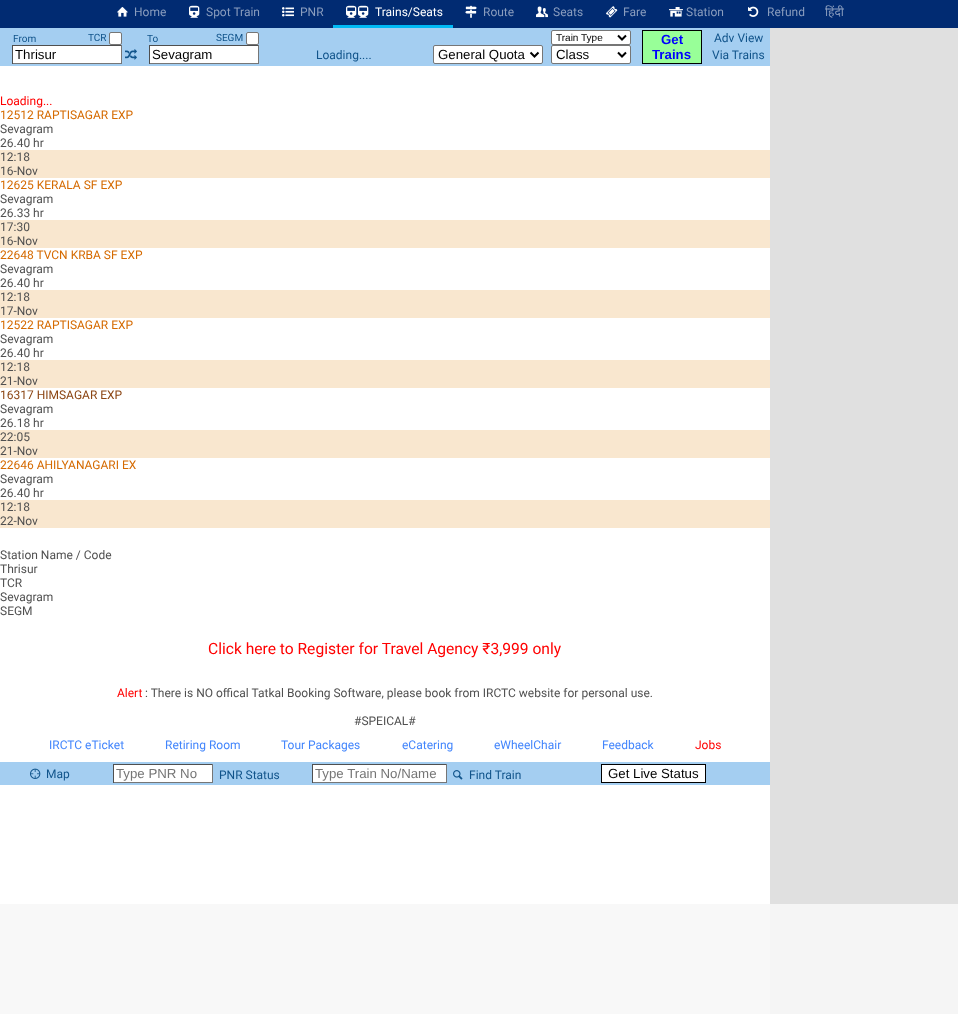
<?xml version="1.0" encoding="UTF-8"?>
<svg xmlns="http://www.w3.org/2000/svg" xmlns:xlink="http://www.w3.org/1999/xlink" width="958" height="1014">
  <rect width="100%" height="100%" fill="#e0e0e0" />
  <rect x="770" y="904" width="188" height="110" fill="#f5f5f5" />
  <rect width="958" height="28" fill="#012b72" />
  <image x="117" y="7" width="11" height="10" xlink:href="image1.png" />
  <image x="189" y="5" width="11" height="13" xlink:href="image2.png" />
  <image x="282" y="7" width="12" height="10" xlink:href="image3.png" />
  <rect x="333" y="25" width="120" height="3" fill="#00b9f5" />
  <image x="346" y="5" width="11" height="13" xlink:href="image2.png" />
  <image x="358" y="5" width="11" height="13" xlink:href="image2.png" />
  <image x="465" y="5" width="12" height="13" xlink:href="image4.png" />
  <image x="536" y="6" width="12" height="12" xlink:href="image5.png" />
  <image x="606" y="6" width="12" height="12" xlink:href="image6.png" />
  <image x="669" y="7" width="14" height="10" xlink:href="image7.png" />
  <image x="748" y="6" width="11" height="11" xlink:href="image8.png" />
  <rect y="66" width="770" height="838" fill="#ffffff" />
  <rect y="904" width="770" height="110" fill="#f8f8f8" />
  <rect y="28" width="770" height="38" fill="#a4cef1" />
  <rect x="109.5" y="32.5" width="12" height="12" rx="1.5" fill="#ffffff" stroke="#767676" />
  <rect x="246.5" y="32.5" width="12" height="12" rx="1.5" fill="#ffffff" stroke="#767676" />
  <rect x="551.5" y="30.5" width="79" height="14" rx="1.5" fill="#ffffff" stroke="#767676" />
  <path d="M 618 35.5 l 4 4 l 4 -4" fill="none" stroke="#000000" stroke-width="2" />
  <rect x="642.5" y="30.5" width="59" height="33" fill="#98ff98" stroke="#000000" />
  <rect x="13" y="46" width="108" height="17" fill="#ffffff" />
  <rect x="12" y="45" width="110" height="1" fill="#4f4f4f" />
  <rect x="121" y="45" width="1" height="19" fill="#767676" />
  <rect x="12" y="63" width="110" height="1" fill="#767676" />
  <rect x="12" y="45" width="1" height="19" fill="#4f4f4f" />
  <image x="125" y="49" width="12" height="11" xlink:href="image9.png" />
  <rect x="150" y="46" width="108" height="17" fill="#ffffff" />
  <rect x="149" y="45" width="110" height="1" fill="#4f4f4f" />
  <rect x="258" y="45" width="1" height="19" fill="#767676" />
  <rect x="149" y="63" width="110" height="1" fill="#767676" />
  <rect x="149" y="45" width="1" height="19" fill="#4f4f4f" />
  <rect x="433.5" y="45.5" width="109" height="18" rx="1.5" fill="#ffffff" stroke="#767676" />
  <path d="M 530.5 52.5 l 4 4 l 4 -4" fill="none" stroke="#000000" stroke-width="2" />
  <rect x="551.5" y="45.5" width="79" height="18" rx="1.5" fill="#ffffff" stroke="#767676" />
  <path d="M 618 52.5 l 4 4 l 4 -4" fill="none" stroke="#000000" stroke-width="2" />
  <rect y="150" width="770" height="28" fill="#f9e7cf" />
  <rect y="220" width="770" height="28" fill="#f9e7cf" />
  <rect y="290" width="770" height="28" fill="#f9e7cf" />
  <rect y="360" width="770" height="28" fill="#f9e7cf" />
  <rect y="430" width="770" height="28" fill="#f9e7cf" />
  <rect y="500" width="770" height="28" fill="#f9e7cf" />
  <rect y="762" width="770" height="23" fill="#a4cef1" />
  <image x="30" y="768" width="11" height="11" xlink:href="image10.png" />
  <rect x="114" y="765" width="98" height="17" fill="#ffffff" />
  <rect x="113" y="764" width="100" height="1" fill="#4f4f4f" />
  <rect x="212" y="764" width="1" height="19" fill="#767676" />
  <rect x="113" y="782" width="100" height="1" fill="#767676" />
  <rect x="113" y="764" width="1" height="19" fill="#4f4f4f" />
  <rect x="313" y="765" width="133" height="17" fill="#ffffff" />
  <rect x="312" y="764" width="135" height="1" fill="#4f4f4f" />
  <rect x="446" y="764" width="1" height="19" fill="#767676" />
  <rect x="312" y="782" width="135" height="1" fill="#767676" />
  <rect x="312" y="764" width="1" height="19" fill="#4f4f4f" />
  <image x="453" y="770" width="10" height="10" xlink:href="image11.png" />
  <rect x="601.5" y="764.5" width="104" height="18" fill="#ffffff" stroke="#000000" />
  <text x="134" y="16" style="font-family: Roboto; font-size: 12px; fill: #8a9dbe">Home</text>
  <text x="206" y="16" style="font-family: Roboto; font-size: 12px; fill: #8a9dbe">Spot Train</text>
  <text x="300" y="16" style="font-family: Roboto; font-size: 12px; fill: #8a9dbe">PNR</text>
  <text x="375" y="16" style="font-family: Roboto; font-size: 12px; fill: #ffffff">Trains/Seats</text>
  <text x="483" y="16" style="font-family: Roboto; font-size: 12px; fill: #8a9dbe">Route</text>
  <text x="553" y="16" style="font-family: Roboto; font-size: 12px; fill: #8a9dbe">Seats</text>
  <text x="623" y="16" style="font-family: Roboto; font-size: 12px; fill: #8a9dbe">Fare</text>
  <text x="686" y="16" style="font-family: Roboto; font-size: 12px; fill: #8a9dbe">Station</text>
  <text x="767" y="16" style="font-family: Roboto; font-size: 12px; fill: #8a9dbe">Refund</text>
  <text x="825" y="16" style="font-family: Noto Sans; font-size: 12px; fill: #8a9dbe">हिंदी</text>
  <text x="13" y="42" style="font-family: Roboto; font-size: 10px; fill: #11548b">From</text>
  <text x="88" y="41" style="font-family: Roboto; font-size: 10px; fill: #11548b">TCR</text>
  <text x="147" y="42" style="font-family: Roboto; font-size: 10px; fill: #11548b">To</text>
  <text x="216" y="41" style="font-family: Roboto; font-size: 10px; fill: #11548b">SEGM</text>
  <text x="556" y="41" style="font-family: Liberation Sans; font-size: 10px; fill: #000000">Train Type</text>
  <text x="661" y="44" style="font-family: Liberation Sans; font-size: 13.25px; font-weight: bold; fill: #0000ff">Get</text>
  <text x="652" y="59" style="font-family: Liberation Sans; font-size: 13.25px; font-weight: bold; fill: #0000ff">Trains</text>
  <text x="714" y="42" style="font-family: Roboto; font-size: 12px; fill: #11548b">Adv View</text>
  <text x="15" y="59" style="font-family: Liberation Sans; font-size: 13.25px; fill: #000000">Thrisur</text>
  <text x="152" y="59" style="font-family: Liberation Sans; font-size: 13.25px; fill: #000000">Sevagram</text>
  <text x="316" y="59" style="font-family: Roboto; font-size: 12px; fill: #11548b">Loading....</text>
  <text x="438" y="59" style="font-family: Liberation Sans; font-size: 13.25px; fill: #000000">General Quota</text>
  <text x="556" y="59" style="font-family: Liberation Sans; font-size: 13.25px; fill: #000000">Class</text>
  <text x="712" y="59" style="font-family: Roboto; font-size: 12px; fill: #11548b">Via Trains</text>
  <text x="0" y="105" style="font-family: Roboto; font-size: 12px; fill: #ff0000">Loading...</text>
  <text x="0" y="119" style="font-family: Roboto; font-size: 12px; fill: #d56a00">12512 RAPTISAGAR EXP</text>
  <text x="0" y="133" style="font-family: Roboto; font-size: 12px; fill: #505050">Sevagram</text>
  <text x="0" y="147" style="font-family: Roboto; font-size: 12px; fill: #505050">26.40 hr</text>
  <text x="0" y="161" style="font-family: Roboto; font-size: 12px; fill: #505050">12:18</text>
  <text x="0" y="175" style="font-family: Roboto; font-size: 12px; fill: #505050">16-Nov</text>
  <text x="0" y="189" style="font-family: Roboto; font-size: 12px; fill: #d56a00">12625 KERALA SF EXP</text>
  <text x="0" y="203" style="font-family: Roboto; font-size: 12px; fill: #505050">Sevagram</text>
  <text x="0" y="217" style="font-family: Roboto; font-size: 12px; fill: #505050">26.33 hr</text>
  <text x="0" y="231" style="font-family: Roboto; font-size: 12px; fill: #505050">17:30</text>
  <text x="0" y="245" style="font-family: Roboto; font-size: 12px; fill: #505050">16-Nov</text>
  <text x="0" y="259" style="font-family: Roboto; font-size: 12px; fill: #d56a00">22648 TVCN KRBA SF EXP</text>
  <text x="0" y="273" style="font-family: Roboto; font-size: 12px; fill: #505050">Sevagram</text>
  <text x="0" y="287" style="font-family: Roboto; font-size: 12px; fill: #505050">26.40 hr</text>
  <text x="0" y="301" style="font-family: Roboto; font-size: 12px; fill: #505050">12:18</text>
  <text x="0" y="315" style="font-family: Roboto; font-size: 12px; fill: #505050">17-Nov</text>
  <text x="0" y="329" style="font-family: Roboto; font-size: 12px; fill: #d56a00">12522 RAPTISAGAR EXP</text>
  <text x="0" y="343" style="font-family: Roboto; font-size: 12px; fill: #505050">Sevagram</text>
  <text x="0" y="357" style="font-family: Roboto; font-size: 12px; fill: #505050">26.40 hr</text>
  <text x="0" y="371" style="font-family: Roboto; font-size: 12px; fill: #505050">12:18</text>
  <text x="0" y="385" style="font-family: Roboto; font-size: 12px; fill: #505050">21-Nov</text>
  <text x="0" y="399" style="font-family: Roboto; font-size: 12px; fill: #8b4513">16317 HIMSAGAR EXP</text>
  <text x="0" y="413" style="font-family: Roboto; font-size: 12px; fill: #505050">Sevagram</text>
  <text x="0" y="427" style="font-family: Roboto; font-size: 12px; fill: #505050">26.18 hr</text>
  <text x="0" y="441" style="font-family: Roboto; font-size: 12px; fill: #505050">22:05</text>
  <text x="0" y="455" style="font-family: Roboto; font-size: 12px; fill: #505050">21-Nov</text>
  <text x="0" y="469" style="font-family: Roboto; font-size: 12px; fill: #d56a00">22646 AHILYANAGARI EX</text>
  <text x="0" y="483" style="font-family: Roboto; font-size: 12px; fill: #505050">Sevagram</text>
  <text x="0" y="497" style="font-family: Roboto; font-size: 12px; fill: #505050">26.40 hr</text>
  <text x="0" y="511" style="font-family: Roboto; font-size: 12px; fill: #505050">12:18</text>
  <text x="0" y="525" style="font-family: Roboto; font-size: 12px; fill: #505050">22-Nov</text>
  <text x="0" y="559" style="font-family: Roboto; font-size: 12px; fill: #505050">Station Name / Code</text>
  <text x="0" y="573" style="font-family: Roboto; font-size: 12px; fill: #505050">Thrisur</text>
  <text x="0" y="587" style="font-family: Roboto; font-size: 12px; fill: #505050">TCR</text>
  <text x="0" y="601" style="font-family: Roboto; font-size: 12px; fill: #505050">Sevagram</text>
  <text x="0" y="615" style="font-family: Roboto; font-size: 12px; fill: #505050">SEGM</text>
  <text x="208" y="654" style="font-family: Roboto; font-size: 15.6px; fill: #ff0000">Click here to Register for Travel Agency ₹3,999 only</text>
  <text x="117" y="697" style="font-family: Roboto; font-size: 12px; fill: #ff0000">Alert</text>
  <text x="145" y="697" style="font-family: Roboto; font-size: 12px; fill: #505050">: There is NO offical Tatkal Booking Software, please book from IRCTC website for personal use.</text>
  <text x="354" y="725" style="font-family: Roboto; font-size: 12px; fill: #505050">#SPEICAL#</text>
  <text x="49" y="749" style="font-family: Roboto; font-size: 12px; fill: #4285fc">IRCTC eTicket</text>
  <text x="165" y="749" style="font-family: Roboto; font-size: 12px; fill: #4285fc">Retiring Room</text>
  <text x="281" y="749" style="font-family: Roboto; font-size: 12px; fill: #4285fc">Tour Packages</text>
  <text x="402" y="749" style="font-family: Roboto; font-size: 12px; fill: #4285fc">eCatering</text>
  <text x="494" y="749" style="font-family: Roboto; font-size: 12px; fill: #4285fc">eWheelChair</text>
  <text x="602" y="749" style="font-family: Roboto; font-size: 12px; fill: #4285fc">Feedback</text>
  <text x="695" y="749" style="font-family: Roboto; font-size: 12px; fill: #ff0000">Jobs</text>
  <text x="46" y="778" style="font-family: Roboto; font-size: 12px; fill: #11548b">Map</text>
  <text x="116" y="778" style="font-family: Liberation Sans; font-size: 13.25px; fill: #757575">Type PNR No</text>
  <text x="219" y="779" style="font-family: Roboto; font-size: 12px; fill: #11548b">PNR Status</text>
  <text x="315" y="778" style="font-family: Liberation Sans; font-size: 13.25px; fill: #757575">Type Train No/Name</text>
  <text x="469" y="779" style="font-family: Roboto; font-size: 12px; fill: #11548b">Find Train</text>
  <text x="608" y="778" style="font-family: Liberation Sans; font-size: 13.25px; fill: #000000">Get Live Status</text>
</svg>
